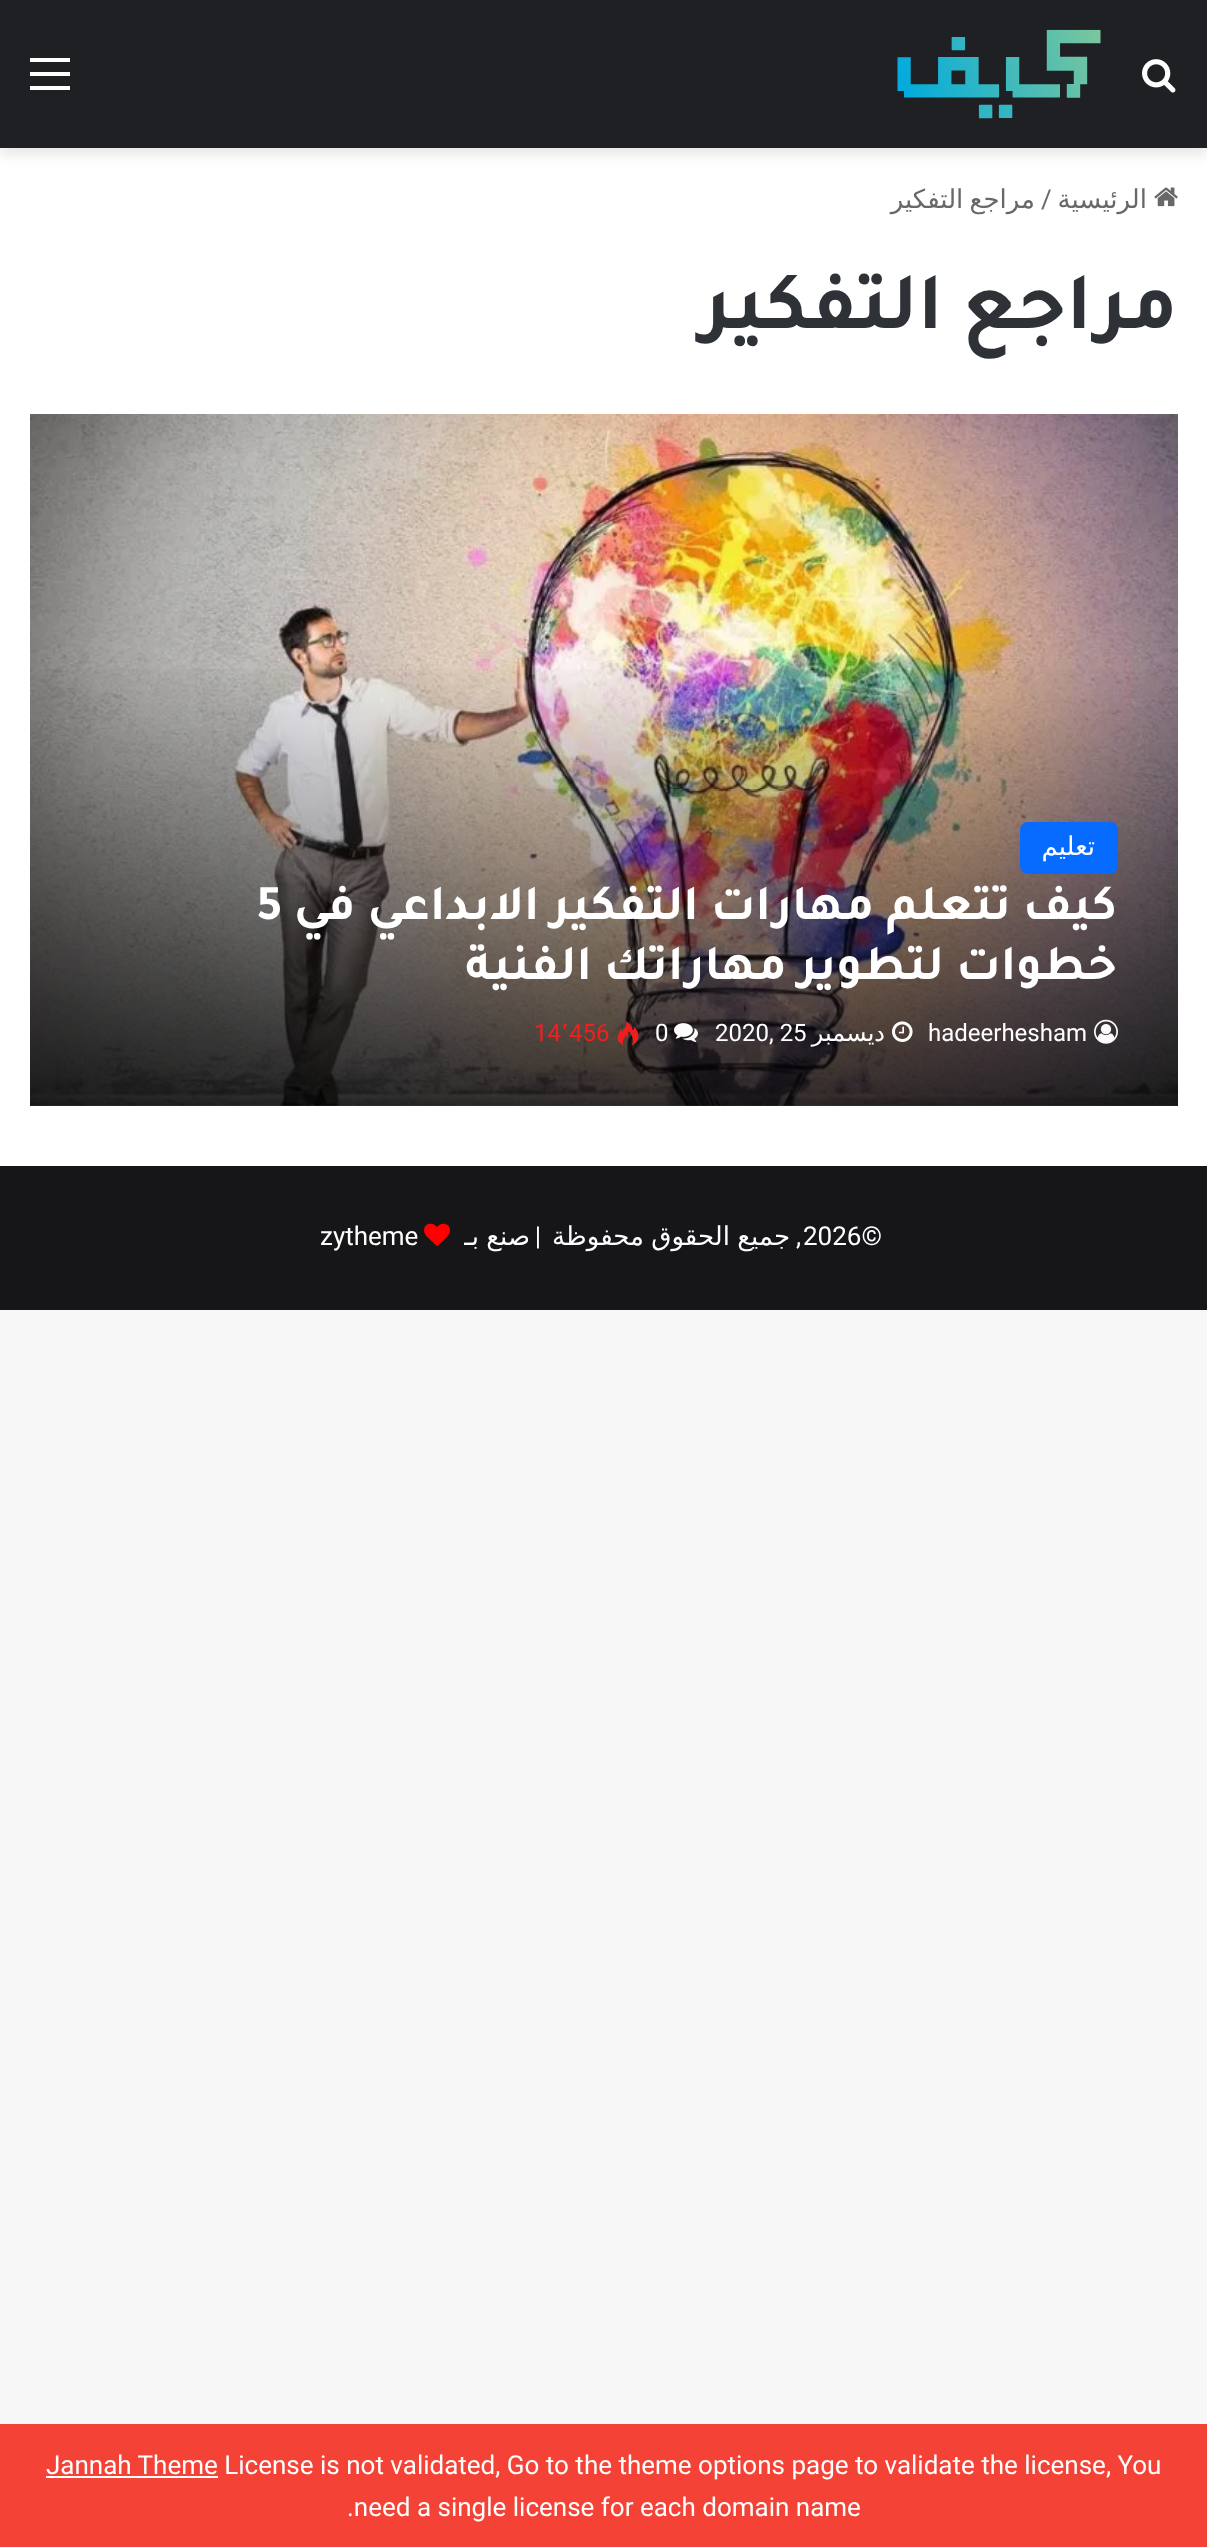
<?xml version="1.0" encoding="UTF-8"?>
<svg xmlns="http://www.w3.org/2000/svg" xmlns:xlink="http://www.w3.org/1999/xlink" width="1207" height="2547">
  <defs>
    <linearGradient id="g1" gradientUnits="userSpaceOnUse" x1="604" y1="656" x2="604" y2="1106"><stop offset="0" stop-color="#030303" stop-opacity="0" /><stop offset="1" stop-color="#030303" stop-opacity="0.75" /></linearGradient>
  </defs>
  <rect width="100%" height="100%" fill="#f7f7f7" />
  <rect y="148" width="1207" height="1018" fill="#ffffff" />
  <rect y="6" width="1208" height="148" fill="#000000" fill-opacity="0.1" filter="blur(7px)" />
  <rect width="1207" height="148" fill="#1f2024" />
  <rect x="30" y="72" width="40" height="4" fill="#ffffff" />
  <rect x="30" y="58" width="40" height="4" fill="#ffffff" />
  <rect x="30" y="86" width="40" height="4" fill="#ffffff" />
  <image x="897" y="29" width="204" height="90" xlink:href="image1.png" />
  <image x="1142" y="59" width="34" height="34" xlink:href="image2.png" />
  <image x="1154" y="187" width="24" height="20" xlink:href="image3.png" />
  <image x="30" y="414" width="1148" height="692" xlink:href="image4.png" />
  <rect x="30" y="669" width="1148" height="437" fill="url(#g1)" />
  <rect x="1020" y="822" width="98" height="52" rx="8" fill="#086bff" />
  <image x="617" y="1021" width="22" height="25" xlink:href="image5.png" />
  <image x="674" y="1023" width="24" height="19" xlink:href="image6.png" />
  <image x="892" y="1021" width="21" height="21" xlink:href="image7.png" />
  <image x="1094" y="1019" width="24" height="25" xlink:href="image8.png" />
  <rect y="1166" width="1207" height="144" fill="#161619" />
  <image x="424" y="1223" width="26" height="23" xlink:href="image9.png" />
  <rect y="2424" width="1207" height="123" fill="#f44336" />
  <rect x="46" y="2476" width="172" height="2" fill="#ffffff" />
  <text x="1035" y="208" word-spacing="-2" style="font-family: DejaVu Sans; font-size: 26px; direction: rtl; fill: #686868">مراجع التفكير</text>
  <text x="1041" y="208" style="font-family: Roboto; font-size: 26px; fill: #686868">/</text>
  <text x="1147" y="208" style="font-family: DejaVu Sans; font-size: 26px; direction: rtl; fill: #686868">الرئيسية</text>
  <text x="1178" y="328" style="font-family: Tajawal; font-size: 82px; font-weight: bold; direction: rtl; fill: #2e3136">مراجع التفكير</text>
  <text x="1095" y="855" style="font-family: DejaVu Sans; font-size: 26px; direction: rtl; fill: #ffffff">تعليم</text>
  <text x="257" y="919" style="font-family: Tajawal; font-size: 50px; font-weight: bold; fill: #ffffff">5</text>
  <text x="1117" y="919" style="font-family: Tajawal; font-size: 50px; font-weight: bold; direction: rtl; fill: #ffffff">كيف تتعلم مهارات التفكير الابداعي في</text>
  <text x="1117" y="979" style="font-family: Tajawal; font-size: 50px; font-weight: bold; direction: rtl; fill: #ffffff">خطوات لتطوير مهاراتك الفنية</text>
  <text x="534" y="1041" style="font-family: Roboto; font-size: 24px; fill: #f12020">14</text>
  <text x="561" y="1041" style="font-family: DejaVu Sans; font-size: 24px; fill: #f12020">٬</text>
  <text x="569" y="1041" style="font-family: Roboto; font-size: 24px; fill: #f12020">456</text>
  <text x="655" y="1041" style="font-family: Roboto; font-size: 24px; fill: #ffffff">0</text>
  <text x="715" y="1041" style="font-family: Roboto; font-size: 24px; fill: #ffffff">2020, 25</text>
  <text x="885" y="1041" style="font-family: DejaVu Sans; font-size: 24px; direction: rtl; fill: #ffffff">ديسمبر</text>
  <text x="928" y="1041" style="font-family: Roboto; font-size: 24px; fill: #ffffff">hadeerhesham</text>
  <text x="320" y="1245" style="font-family: Roboto; font-size: 26px; fill: #ffffff">zytheme</text>
  <text x="479" y="1245" style="font-family: DejaVu Sans; font-size: 26px; direction: rtl; fill: #ffffff">بـ</text>
  <text x="530" y="1245" style="font-family: DejaVu Sans; font-size: 26px; direction: rtl; fill: #ffffff">صنع</text>
  <text x="541" y="1245" style="font-family: Roboto; font-size: 26px; direction: rtl; fill: #ffffff">|</text>
  <text x="790" y="1245" word-spacing="-1" style="font-family: DejaVu Sans; font-size: 26px; direction: rtl; fill: #ffffff">جميع الحقوق محفوظة</text>
  <text x="801" y="1245" style="font-family: Roboto; font-size: 26px; direction: rtl; fill: #ffffff">,</text>
  <text x="803" y="1245" style="font-family: Roboto; font-size: 26px; fill: #ffffff">2026©</text>
  <text x="46" y="2474" style="font-family: Roboto; font-size: 26px; fill: #ffffff">Jannah Theme License is not validated, Go to the theme options page to validate the license, You</text>
  <text x="347" y="2516" style="font-family: Roboto; font-size: 26px; fill: #ffffff">.need a single license for each domain name</text>
</svg>
